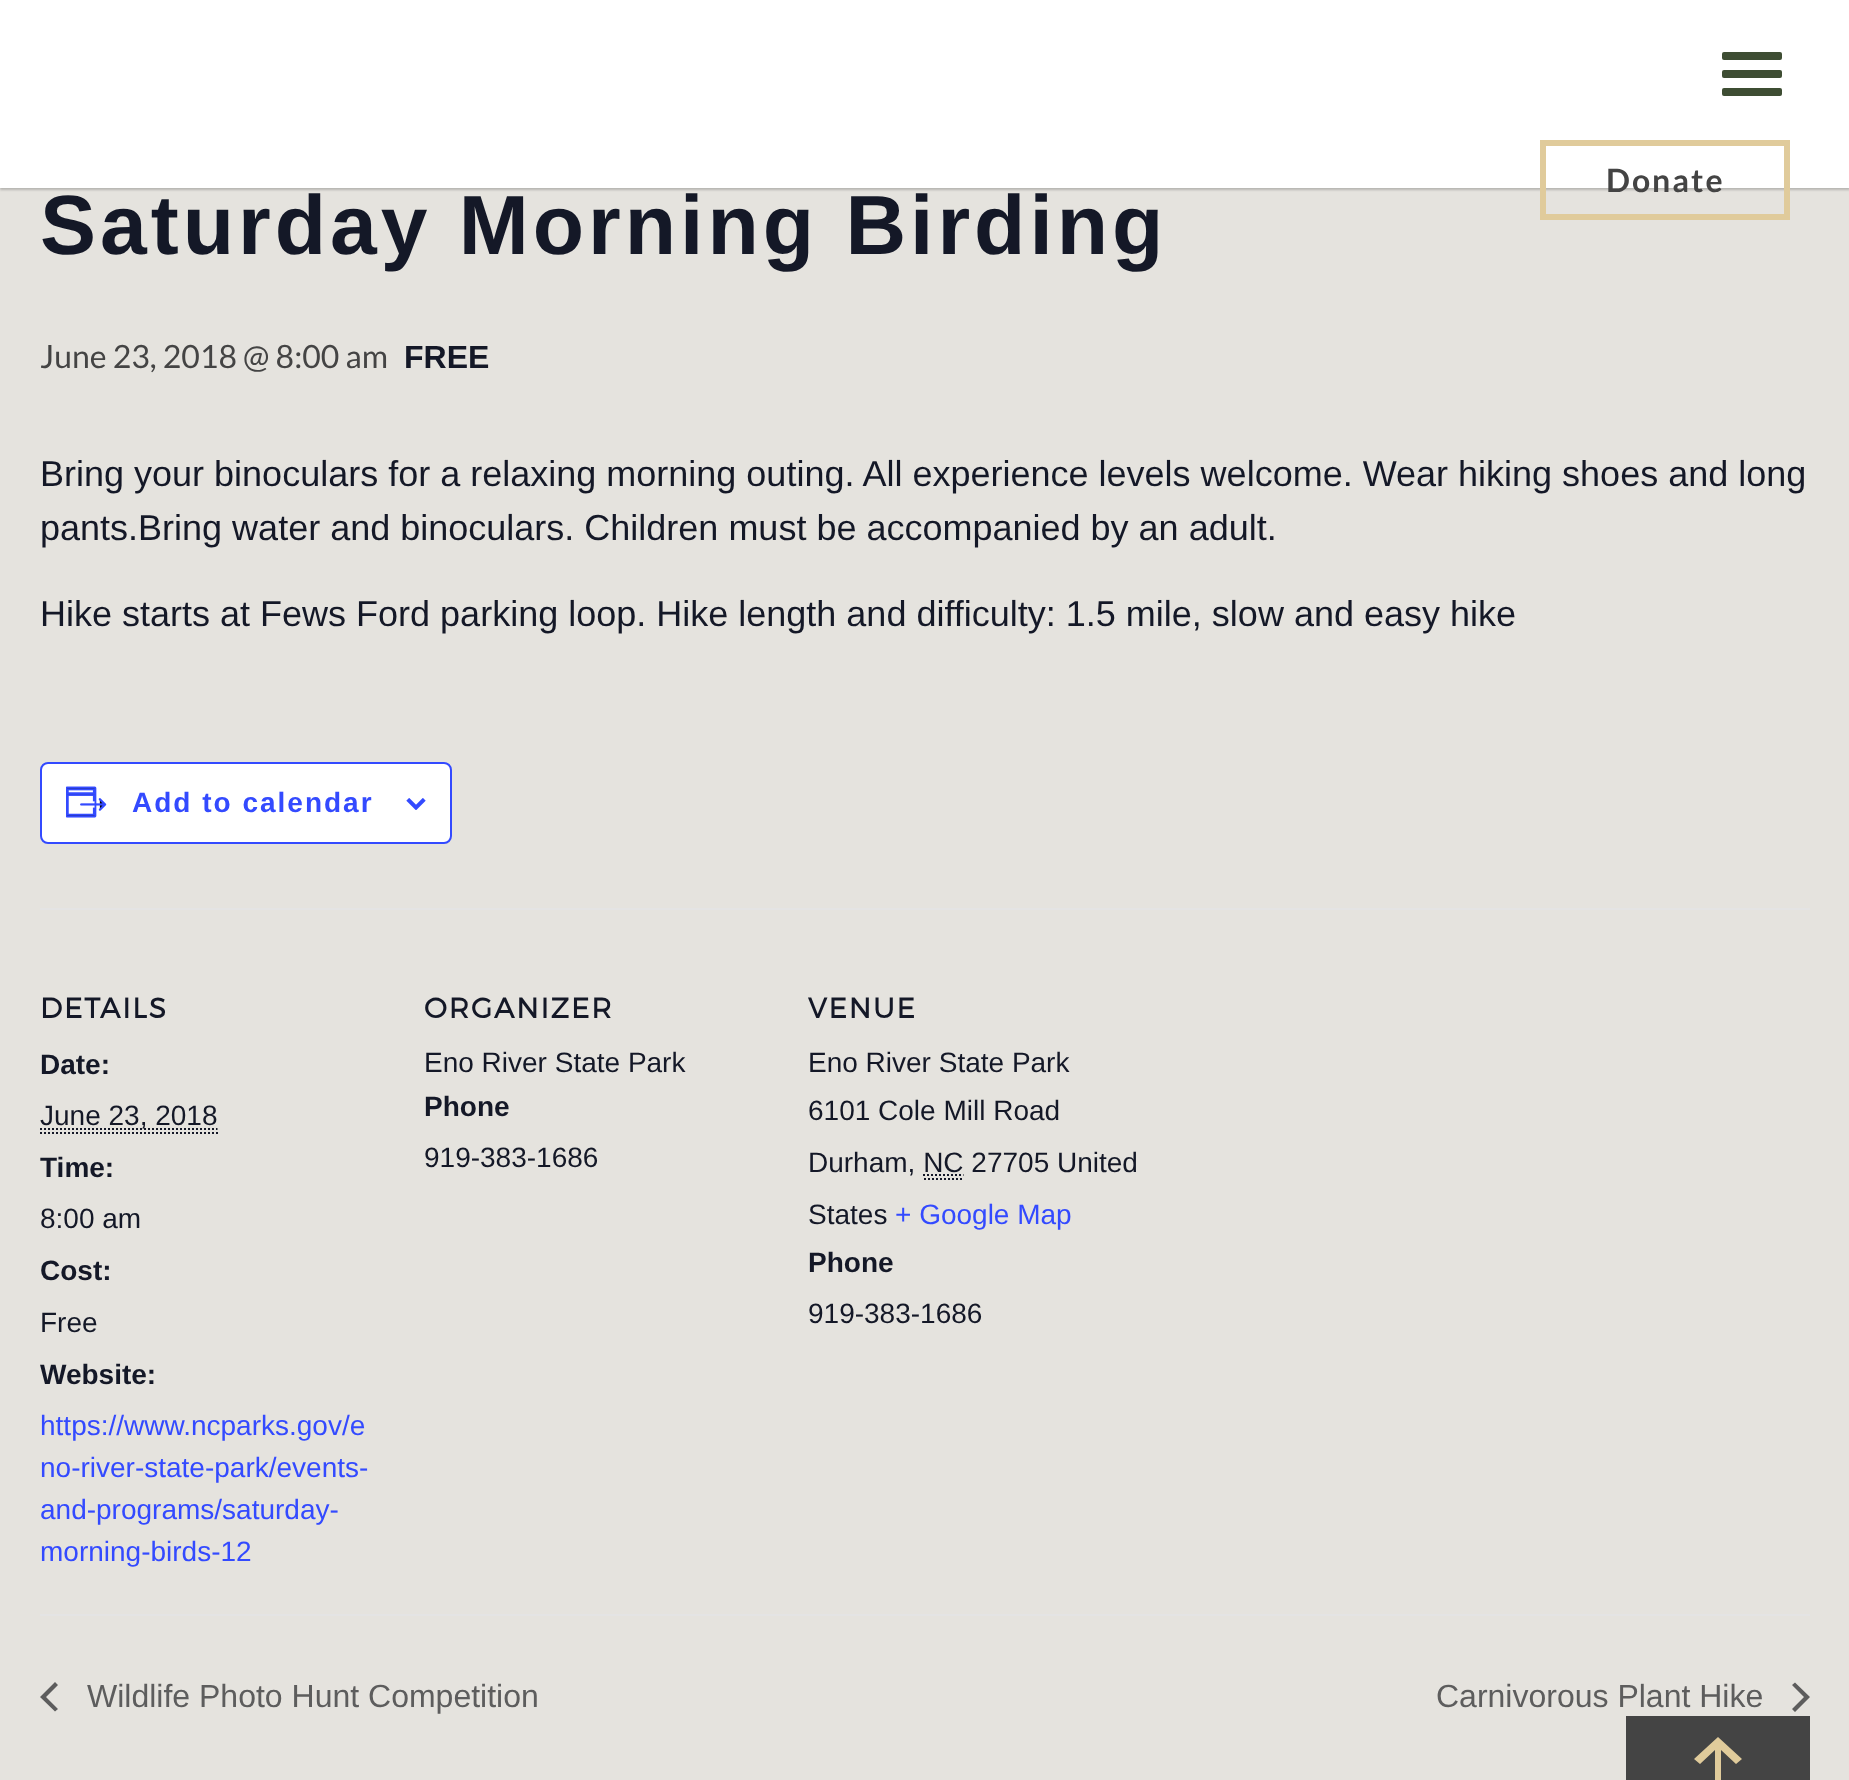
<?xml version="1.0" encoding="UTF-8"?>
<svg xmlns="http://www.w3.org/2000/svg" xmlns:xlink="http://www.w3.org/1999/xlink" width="1849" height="1780">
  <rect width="100%" height="100%" fill="#e5e3de" />
  <rect y="2" width="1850" height="188" fill="#000000" fill-opacity="0.2" filter="blur(1px)" />
  <rect width="1849" height="188" fill="#ffffff" />
  <rect x="1722" y="70" width="60" height="8" rx="2" fill="#3e4d33" />
  <rect x="1722" y="52" width="60" height="8" rx="2" fill="#3e4d33" />
  <rect x="1722" y="88" width="60" height="8" rx="2" fill="#3e4d33" />
  <rect x="1543" y="143" width="244" height="74" fill="none" stroke="#e0cb9b" stroke-width="6" />
  <rect x="41" y="763" width="410" height="80" rx="7" fill="#ffffff" stroke="#334aff" stroke-width="2" />
  <image x="66" y="786" width="41" height="32" xlink:href="image1.png" />
  <image x="406" y="798" width="20" height="12" xlink:href="image2.png" />
  <rect x="40" y="908" width="1770" height="2" fill="#e4e4e4" />
  <path d="M 40 1133 h 178" fill="none" stroke="#141827" stroke-width="2" stroke-dasharray="2 2" />
  <path d="M 40 1129 h 177.5" fill="none" stroke="#141827" stroke-width="2" stroke-dasharray="2 2" />
  <path d="M 924 1179 h 40 m -41 -4 h 40.5" fill="none" stroke="#141827" stroke-width="2" stroke-dasharray="2 2" />
  <rect x="40" y="1614" width="1770" height="2" fill="#e4e4e4" />
  <path d="M 58 1709 l -3 2.5 l -15 -14.5 l 15 -15 l 3 3 l -12 12 z" fill="#5d5d5d" />
  <path d="M 1792 1685 l 3 -2.5 l 15 14.5 l -15 15 l -3 -3 l 12 -12 z" fill="#5d5d5d" />
  <rect x="1626" y="1716" width="184" height="64" fill="#444444" />
  <path d="M 1742 1759 l -24 -22 l -24 22 l 6 5 l 15 -14 v 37 h 6 v -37 l 15 14 z" fill="#e0cb9b" fill-rule="evenodd" />
  <text x="1606" y="192" style="font-family: Lato; font-size: 32px; font-weight: bold; letter-spacing: 2px; fill: #444444">Donate</text>
  <text x="40" y="254" style="font-family: Liberation Sans; font-size: 84px; font-weight: bold; letter-spacing: 4px; fill: #141827">Saturday Morning Birding</text>
  <text x="40" y="368" style="font-family: Lato; font-size: 32px; fill: #444444">June 23, 2018 @ 8:00 am</text>
  <text x="404" y="368" style="font-family: Liberation Sans; font-size: 32px; font-weight: bold; fill: #141827">FREE</text>
  <text x="40" y="486" style="font-family: Liberation Sans; font-size: 36px; fill: #141827">Bring your binoculars for a relaxing morning outing. All experience levels welcome. Wear hiking shoes and long</text>
  <text x="40" y="540" style="font-family: Liberation Sans; font-size: 36px; fill: #141827">pants.Bring water and binoculars. Children must be accompanied by an adult.</text>
  <text x="40" y="626" style="font-family: Liberation Sans; font-size: 36px; fill: #141827">Hike starts at Fews Ford parking loop. Hike length and difficulty: 1.5 mile, slow and easy hike</text>
  <text x="132" y="812" style="font-family: Liberation Sans; font-size: 28px; font-weight: bold; letter-spacing: 2px; fill: #334aff">Add to calendar</text>
  <text x="40" y="1018" style="font-family: Montserrat; font-size: 28px; font-weight: bold; letter-spacing: 2px; fill: #141827">DETAILS</text>
  <text x="40" y="1074" style="font-family: Liberation Sans; font-size: 28px; font-weight: bold; fill: #141827">Date:</text>
  <text x="40" y="1125" style="font-family: Liberation Sans; font-size: 28px; fill: #141827">June 23, 2018</text>
  <text x="40" y="1177" style="font-family: Liberation Sans; font-size: 28px; font-weight: bold; fill: #141827">Time:</text>
  <text x="40" y="1228" style="font-family: Liberation Sans; font-size: 28px; fill: #141827">8:00 am</text>
  <text x="40" y="1280" style="font-family: Liberation Sans; font-size: 28px; font-weight: bold; fill: #141827">Cost:</text>
  <text x="40" y="1332" style="font-family: Liberation Sans; font-size: 28px; fill: #141827">Free</text>
  <text x="40" y="1384" style="font-family: Liberation Sans; font-size: 28px; font-weight: bold; fill: #141827">Website:</text>
  <text x="40" y="1435" style="font-family: Liberation Sans; font-size: 28px; fill: #334aff">https://www.ncparks.gov/e</text>
  <text x="40" y="1477" style="font-family: Liberation Sans; font-size: 28px; fill: #334aff">no-river-state-park/events-</text>
  <text x="40" y="1519" style="font-family: Liberation Sans; font-size: 28px; fill: #334aff">and-programs/saturday-</text>
  <text x="40" y="1561" style="font-family: Liberation Sans; font-size: 28px; fill: #334aff">morning-birds-12</text>
  <text x="424" y="1018" style="font-family: Montserrat; font-size: 28px; font-weight: bold; letter-spacing: 2px; fill: #141827">ORGANIZER</text>
  <text x="424" y="1072" style="font-family: Liberation Sans; font-size: 28px; fill: #141827">Eno River State Park</text>
  <text x="424" y="1116" style="font-family: Liberation Sans; font-size: 28px; font-weight: bold; fill: #141827">Phone</text>
  <text x="424" y="1167" style="font-family: Liberation Sans; font-size: 28px; fill: #141827">919-383-1686</text>
  <text x="808" y="1018" style="font-family: Montserrat; font-size: 28px; font-weight: bold; letter-spacing: 2px; fill: #141827">VENUE</text>
  <text x="808" y="1072" style="font-family: Liberation Sans; font-size: 28px; fill: #141827">Eno River State Park</text>
  <text x="808" y="1120" style="font-family: Liberation Sans; font-size: 28px; fill: #141827">6101 Cole Mill Road</text>
  <text x="808" y="1172" style="font-family: Liberation Sans; font-size: 28px; fill: #141827">Durham, NC 27705 United</text>
  <text x="808" y="1224" style="font-family: Liberation Sans; font-size: 28px; fill: #141827">States</text>
  <text x="895" y="1224" style="font-family: Liberation Sans; font-size: 28px; fill: #334aff">+ Google Map</text>
  <text x="808" y="1272" style="font-family: Liberation Sans; font-size: 28px; font-weight: bold; fill: #141827">Phone</text>
  <text x="808" y="1323" style="font-family: Liberation Sans; font-size: 28px; fill: #141827">919-383-1686</text>
  <text x="87" y="1707" style="font-family: Liberation Sans; font-size: 32px; fill: #5d5d5d">Wildlife Photo Hunt Competition</text>
  <text x="1436" y="1707" style="font-family: Liberation Sans; font-size: 32px; fill: #5d5d5d">Carnivorous Plant Hike</text>
</svg>
